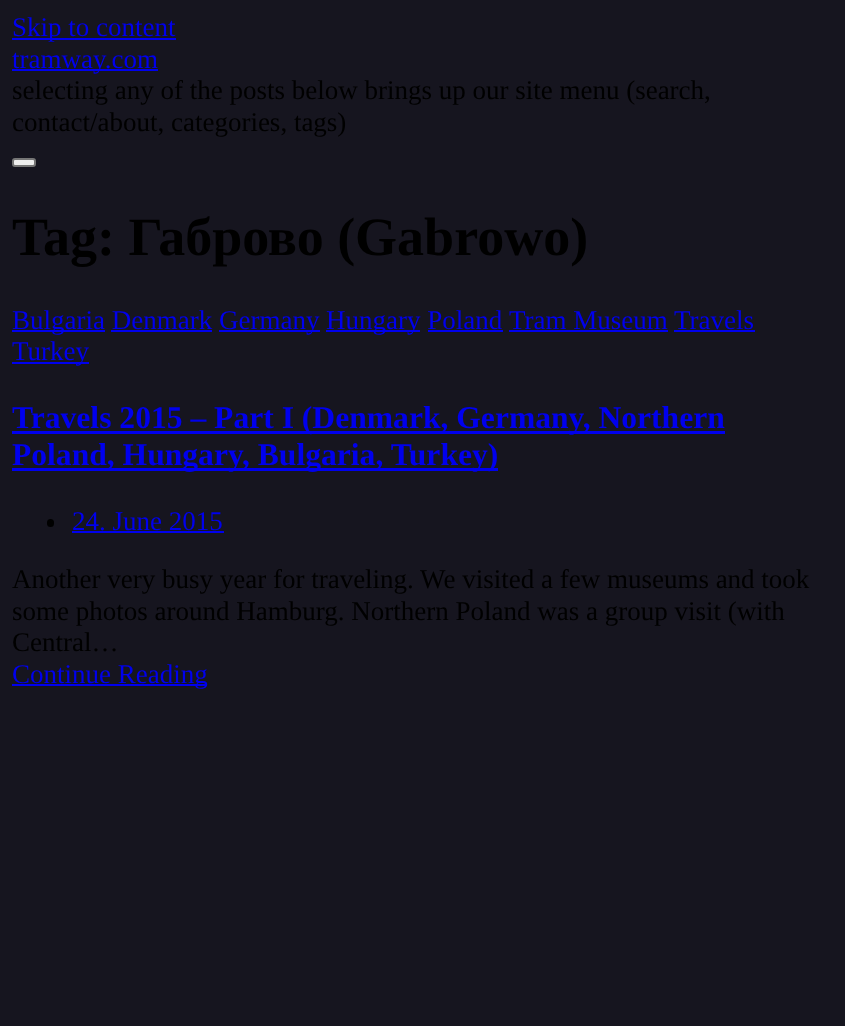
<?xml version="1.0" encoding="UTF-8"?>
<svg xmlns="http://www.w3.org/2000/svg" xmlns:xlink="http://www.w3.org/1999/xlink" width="845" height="1026">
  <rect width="100%" height="100%" fill="#16151f" />
  <rect x="12" y="38" width="164" height="2" fill="#0000ee" />
  <rect x="12" y="69" width="146" height="2" fill="#0000ee" />
  <rect x="13" y="159" width="22" height="7" rx="2" fill="#efefef" stroke="#767676" stroke-width="2" />
  <rect x="12" y="330" width="93" height="2" fill="#0000ee" />
  <rect x="219" y="330" width="101" height="2" fill="#0000ee" />
  <rect x="326" y="330" width="94" height="2" fill="#0000ee" />
  <rect x="509" y="330" width="159" height="2" fill="#0000ee" />
  <rect x="674" y="330" width="81" height="2" fill="#0000ee" />
  <rect x="111" y="330" width="101" height="2" fill="#0000ee" />
  <rect x="428" y="330" width="75" height="2" fill="#0000ee" />
  <rect x="12" y="362" width="77" height="2" fill="#0000ee" />
  <rect x="12" y="431" width="713" height="3" fill="#0000ee" />
  <rect x="12" y="468" width="486" height="3" fill="#0000ee" />
  <rect x="47" y="519" width="7" height="8" rx="3.5" fill="#000000" />
  <rect x="72" y="531" width="152" height="2" fill="#0000ee" />
  <rect x="12" y="684" width="195" height="2" fill="#0000ee" />
  <text x="12" y="36" style="font-family: Liberation Serif; font-size: 27px; fill: #0000ee">Skip to content</text>
  <text x="12" y="68" style="font-family: Liberation Serif; font-size: 27px; fill: #0000ee">tramway.com</text>
  <text x="12" y="99" style="font-family: Liberation Serif; font-size: 27px; fill: #000000">selecting any of the posts below brings up our site menu (search,</text>
  <text x="12" y="131" style="font-family: Liberation Serif; font-size: 27px; fill: #000000">contact/about, categories, tags)</text>
  <text x="12" y="255" style="font-family: Liberation Serif; font-size: 54px; font-weight: bold; fill: #000000">Tag: Габрово (Gabrowo)</text>
  <text x="12" y="329" style="font-family: Liberation Serif; font-size: 27px; fill: #0000ee">Bulgaria Denmark</text>
  <text x="219" y="329" style="font-family: Liberation Serif; font-size: 27px; fill: #0000ee">Germany</text>
  <text x="326" y="329" style="font-family: Liberation Serif; font-size: 27px; fill: #0000ee">Hungary Poland</text>
  <text x="509" y="329" style="font-family: Liberation Serif; font-size: 27px; fill: #0000ee">Tram Museum</text>
  <text x="674" y="329" style="font-family: Liberation Serif; font-size: 27px; fill: #0000ee">Travels</text>
  <text x="12" y="360" style="font-family: Liberation Serif; font-size: 27px; fill: #0000ee">Turkey</text>
  <text x="12" y="428" style="font-family: Liberation Serif; font-size: 31.6px; font-weight: bold; fill: #0000ee">Travels 2015 – Part I (Denmark, Germany, Northern</text>
  <text x="12" y="465" style="font-family: Liberation Serif; font-size: 31.6px; font-weight: bold; fill: #0000ee">Poland, Hungary, Bulgaria, Turkey)</text>
  <text x="72" y="530" style="font-family: Liberation Serif; font-size: 27px; fill: #0000ee">24. June 2015</text>
  <text x="12" y="588" style="font-family: Liberation Serif; font-size: 27px; fill: #000000">Another very busy year for traveling. We visited a few museums and took</text>
  <text x="12" y="620" style="font-family: Liberation Serif; font-size: 27px; fill: #000000">some photos around Hamburg. Northern Poland was a group visit (with</text>
  <text x="12" y="651" style="font-family: Liberation Serif; font-size: 27px; fill: #000000">Central…</text>
  <text x="12" y="683" style="font-family: Liberation Serif; font-size: 27px; fill: #0000ee">Continue Reading</text>
</svg>
